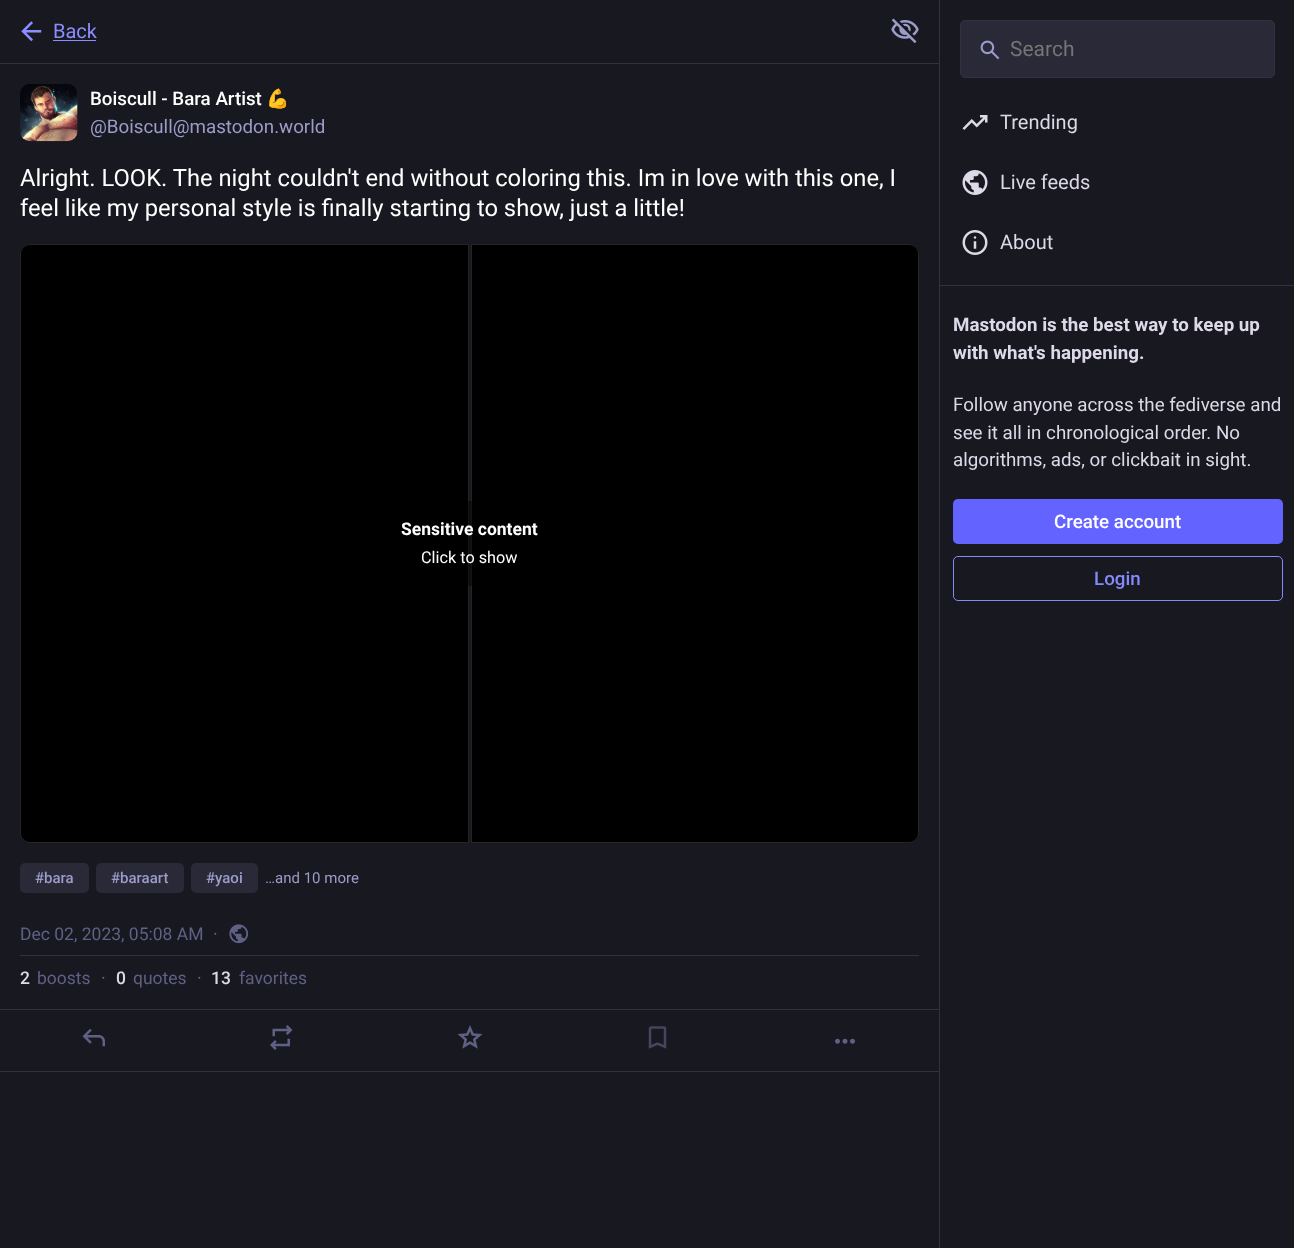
<?xml version="1.0" encoding="UTF-8"?>
<svg xmlns="http://www.w3.org/2000/svg" xmlns:xlink="http://www.w3.org/1999/xlink" width="1294" height="1248">
  <rect width="100%" height="100%" fill="#181821" />
  <rect y="63" width="939" height="1" fill="#313144" />
  <image x="21" y="21" width="21" height="21" xlink:href="image1.png" />
  <rect x="53" y="40" width="43" height="1" fill="#8c8dff" />
  <image x="891" y="18" width="28" height="26" xlink:href="image2.png" />
  <rect x="20" y="84" width="58" height="57" rx="10" fill="#20202c" />
  <image x="20" y="84" width="58" height="58" xlink:href="image3.png" />
  <path d="M 30 244 h 439 v 599 h -439 c -5.5 0 -10 -4.5 -10 -10 v -579 c 0 -5.5 4.5 -10 10 -10 z" fill="#000000" />
  <path d="M 30 244.5 h 438.5 v 598 h -438.5 c -5 0 -9.5 -4.5 -9.5 -9.5 v -579 c 0 -5 4.5 -9.5 9.5 -9.5 z" fill="none" stroke="#fcf8ff" stroke-opacity="0.15" />
  <path d="M 471 244 h 438 c 5.5 0 10 4.5 10 10 v 579 c 0 5.5 -4.5 10 -10 10 h -438 z" fill="#000000" />
  <path d="M 471.5 244.5 h 437.5 c 5 0 9.5 4.5 9.5 9.5 v 579 c 0 5 -4.5 9.5 -9.5 9.5 h -437.5 z" fill="none" stroke="#fcf8ff" stroke-opacity="0.15" />
  <rect x="381" y="501" width="177" height="85" rx="10" fill="#000000" fill-opacity="0.45" />
  <rect x="20" y="863" width="69" height="30" rx="5" fill="#292938" />
  <rect x="96" y="863" width="88" height="30" rx="5" fill="#292938" />
  <rect x="191" y="863" width="67" height="30" rx="5" fill="#292938" />
  <rect x="20" y="955" width="899" height="1" fill="#313144" />
  <image x="229" y="924" width="20" height="20" xlink:href="image4.png" />
  <rect y="1009" width="939" height="1" fill="#313144" />
  <rect y="1071" width="939" height="1" fill="#313144" />
  <image x="82" y="1029" width="23" height="18" xlink:href="image5.png" />
  <image x="270" y="1025" width="23" height="25" xlink:href="image6.png" />
  <image x="457" y="1025" width="26" height="24" xlink:href="image7.png" />
  <image x="648" y="1026" width="19" height="23" xlink:href="image8.png" />
  <image x="835" y="1038" width="20" height="6" xlink:href="image9.png" />
  <rect x="939" width="1" height="1248" fill="#313144" />
  <rect x="960.5" y="20.5" width="314" height="57" rx="4.5" fill="#292938" stroke="#313144" />
  <image x="980" y="40" width="20" height="20" xlink:href="image10.png" />
  <image x="962" y="115" width="26" height="15" xlink:href="image11.png" />
  <image x="962" y="170" width="26" height="25" xlink:href="image12.png" />
  <image x="962" y="230" width="26" height="25" xlink:href="image13.png" />
  <rect x="940" y="285" width="354" height="1" fill="#313144" />
  <rect x="953" y="499" width="330" height="45" rx="5" fill="#6364ff" />
  <rect x="953.5" y="556.5" width="329" height="44" rx="4.5" fill="none" stroke="#858afa" />
  <text x="53" y="38" style="font-family: Roboto; font-size: 20px; fill: #8c8dff">Back</text>
  <text x="90" y="105" style="font-family: Roboto; font-size: 18.75px; font-weight: 500; fill: #ffffff">Boiscull - Bara Artist</text>
  <text x="266" y="105" style="font-family: Noto Color Emoji; font-size: 18.75px; fill: #ffffff">💪</text>
  <text x="90" y="133" style="font-family: Roboto; font-size: 18.75px; fill: #9c9cc9">@Boiscull@mastodon.world</text>
  <text x="20" y="186" style="font-family: Roboto; font-size: 23.75px; fill: #ffffff">Alright. LOOK. The night couldn't end without coloring this. Im in love with this one, I</text>
  <text x="20" y="216" style="font-family: Roboto; font-size: 23.75px; fill: #ffffff">feel like my personal style is finally starting to show, just a little!</text>
  <text x="401" y="535" style="font-family: Roboto; font-size: 17.5px; font-weight: bold; fill: #ffffff">Sensitive content</text>
  <text x="421" y="563" style="font-family: Roboto; font-size: 16.25px; fill: #ffffff">Click to show</text>
  <text x="35" y="883" style="font-family: Roboto; font-size: 15px; font-weight: 500; fill: #9c9cc9">#bara</text>
  <text x="111" y="883" style="font-family: Roboto; font-size: 15px; font-weight: 500; fill: #9c9cc9">#baraart</text>
  <text x="206" y="883" style="font-family: Roboto; font-size: 15px; font-weight: 500; fill: #9c9cc9">#yaoi</text>
  <text x="265" y="883" style="font-family: Roboto; font-size: 15px; fill: #9c9cc9">…and 10 more</text>
  <text x="20" y="940" style="font-family: Roboto; font-size: 17.5px; fill: #606085">Dec 02, 2023, 05:08 AM</text>
  <text x="213" y="940" style="font-family: Roboto; font-size: 17.5px; fill: #606085">·</text>
  <text x="20" y="984" style="font-family: Roboto; font-size: 17.5px; font-weight: 500; fill: #ddd9e8">2</text>
  <text x="37" y="984" style="font-family: Roboto; font-size: 17.5px; fill: #606085">boosts</text>
  <text x="101" y="984" style="font-family: Roboto; font-size: 17.5px; fill: #606085">·</text>
  <text x="116" y="984" style="font-family: Roboto; font-size: 17.5px; font-weight: 500; fill: #ddd9e8">0</text>
  <text x="133" y="984" style="font-family: Roboto; font-size: 17.5px; fill: #606085">quotes</text>
  <text x="197" y="984" style="font-family: Roboto; font-size: 17.5px; fill: #606085">·</text>
  <text x="211" y="984" style="font-family: Roboto; font-size: 17.5px; font-weight: 500; fill: #ddd9e8">13</text>
  <text x="239" y="984" style="font-family: Roboto; font-size: 17.5px; fill: #606085">favorites</text>
  <text x="1010" y="56" style="font-family: Roboto; font-size: 21px; fill: #757575">Search</text>
  <text x="1000" y="129" style="font-family: Roboto; font-size: 20px; fill: #ddd9e8">Trending</text>
  <text x="1000" y="189" style="font-family: Roboto; font-size: 20px; fill: #ddd9e8">Live feeds</text>
  <text x="1000" y="249" style="font-family: Roboto; font-size: 20px; fill: #ddd9e8">About</text>
  <text x="953" y="331" style="font-family: Roboto; font-size: 18.75px; font-weight: bold; fill: #ddd9e8">Mastodon is the best way to keep up</text>
  <text x="953" y="359" style="font-family: Roboto; font-size: 18.75px; font-weight: bold; fill: #ddd9e8">with what's happening.</text>
  <text x="953" y="411" style="font-family: Roboto; font-size: 18.75px; fill: #ddd9e8">Follow anyone across the fediverse and</text>
  <text x="953" y="439" style="font-family: Roboto; font-size: 18.75px; fill: #ddd9e8">see it all in chronological order. No</text>
  <text x="953" y="466" style="font-family: Roboto; font-size: 18.75px; fill: #ddd9e8">algorithms, ads, or clickbait in sight.</text>
  <text x="1054" y="528" style="font-family: Roboto; font-size: 18.75px; font-weight: 500; fill: #ffffff">Create account</text>
  <text x="1094" y="585" style="font-family: Roboto; font-size: 18.75px; font-weight: 500; fill: #858afa">Login</text>
</svg>
